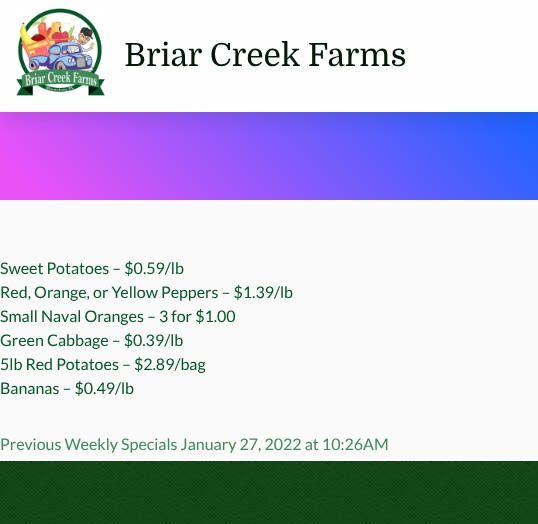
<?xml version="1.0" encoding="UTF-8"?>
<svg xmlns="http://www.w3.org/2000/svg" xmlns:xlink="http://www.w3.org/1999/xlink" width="538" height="524">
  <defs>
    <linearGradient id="g1" gradientUnits="userSpaceOnUse" x1="83" y1="284" x2="455" y2="-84"><stop offset="0.06" stop-color="#ea52f8" /><stop offset="0.94" stop-color="#0066ff" /></linearGradient>
  </defs>
  <rect width="100%" height="100%" fill="#fafafa" />
  <rect y="112" width="538" height="88" fill="url(#g1)" />
  <rect x="2" y="10" width="534" height="108" fill="#0a0a0a" fill-opacity="0.1" filter="blur(8px)" />
  <rect width="538" height="112" fill="#fefefe" />
  <image x="16" y="8" width="89" height="88" xlink:href="image1.png" />
  <image x="0" y="461" width="538" height="63" xlink:href="image2.png" />
  <text x="124" y="66" style="font-family: Domine; font-size: 32px; fill: #02180b">Briar Creek Farms</text>
  <text x="0" y="274" style="font-family: Lato; font-size: 16px; fill: #015726">Sweet Potatoes – $0.59/lb</text>
  <text x="0" y="298" style="font-family: Lato; font-size: 16px; fill: #015726">Red, Orange, or Yellow Peppers – $1.39/lb</text>
  <text x="0" y="322" style="font-family: Lato; font-size: 16px; fill: #015726">Small Naval Oranges – 3 for $1.00</text>
  <text x="0" y="346" style="font-family: Lato; font-size: 16px; fill: #015726">Green Cabbage – $0.39/lb</text>
  <text x="0" y="370" style="font-family: Lato; font-size: 16px; fill: #015726">5lb Red Potatoes – $2.89/bag</text>
  <text x="0" y="394" style="font-family: Lato; font-size: 16px; fill: #015726">Bananas – $0.49/lb</text>
  <text x="0" y="450" style="font-family: Lato; font-size: 16px; fill: #3d8a56">Previous Weekly Specials January 27, 2022 at 10:26AM</text>
</svg>
